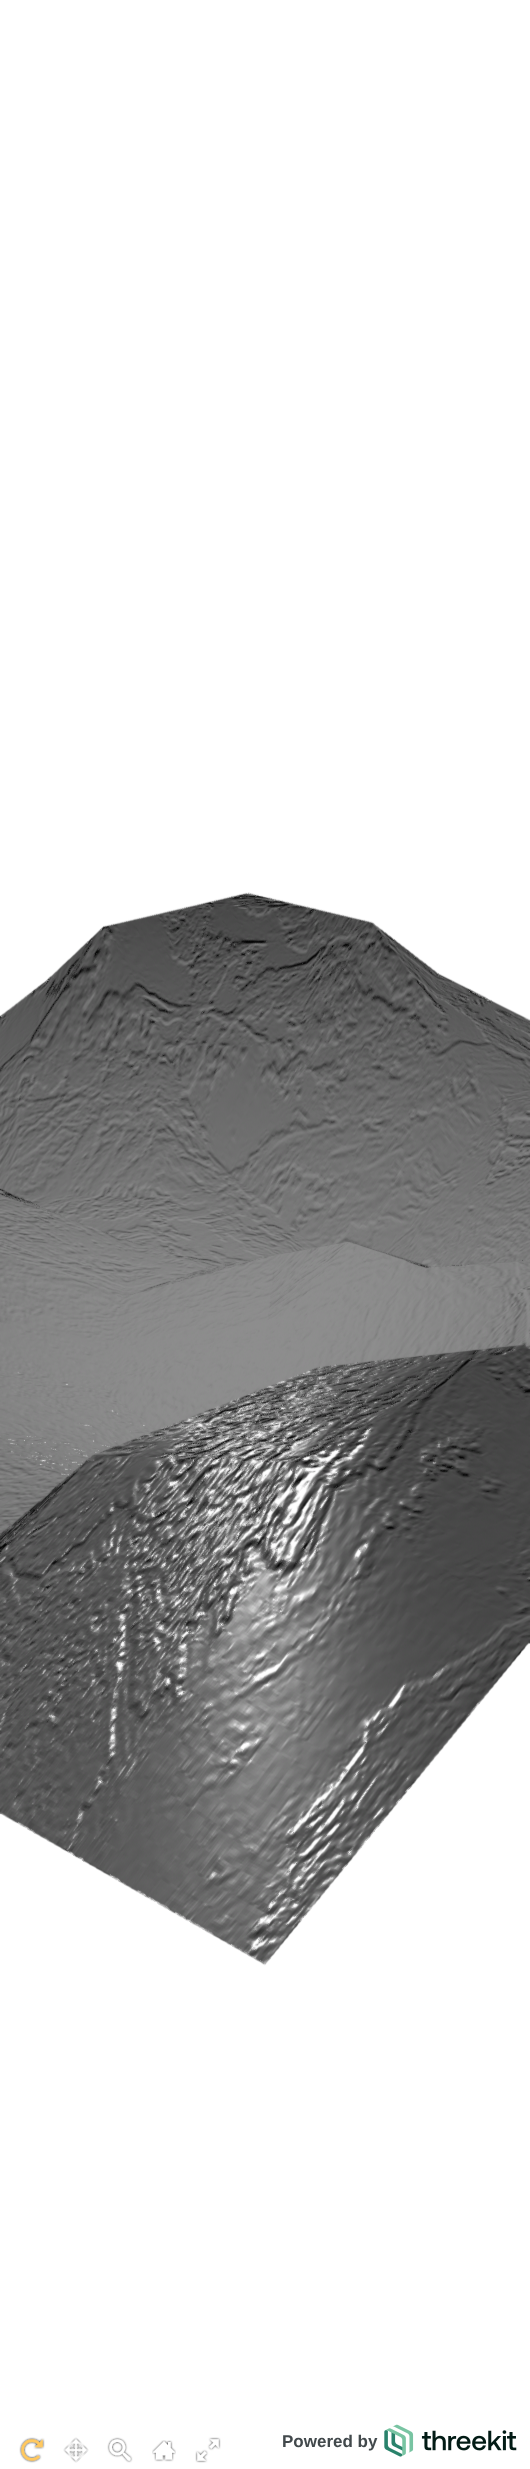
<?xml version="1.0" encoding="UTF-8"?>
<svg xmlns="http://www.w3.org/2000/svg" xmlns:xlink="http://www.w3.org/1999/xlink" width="530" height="2469">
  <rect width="100%" height="100%" fill="#ffffff" />
  <image x="0" y="892" width="530" height="1074" xlink:href="image1.png" />
  <image x="19" y="2437" width="26" height="26" xlink:href="image2.png" />
  <image x="63" y="2437" width="26" height="26" xlink:href="image3.png" />
  <image x="107" y="2437" width="26" height="26" xlink:href="image4.png" />
  <image x="152" y="2440" width="24" height="22" xlink:href="image5.png" />
  <image x="195" y="2437" width="26" height="26" xlink:href="image6.png" />
  <image x="384" y="2424" width="133" height="33" xlink:href="image7.png" />
  <text x="282" y="2447" style="font-family: Liberation Sans; font-size: 17px; font-weight: bold; fill: #42494c">Powered by</text>
</svg>
